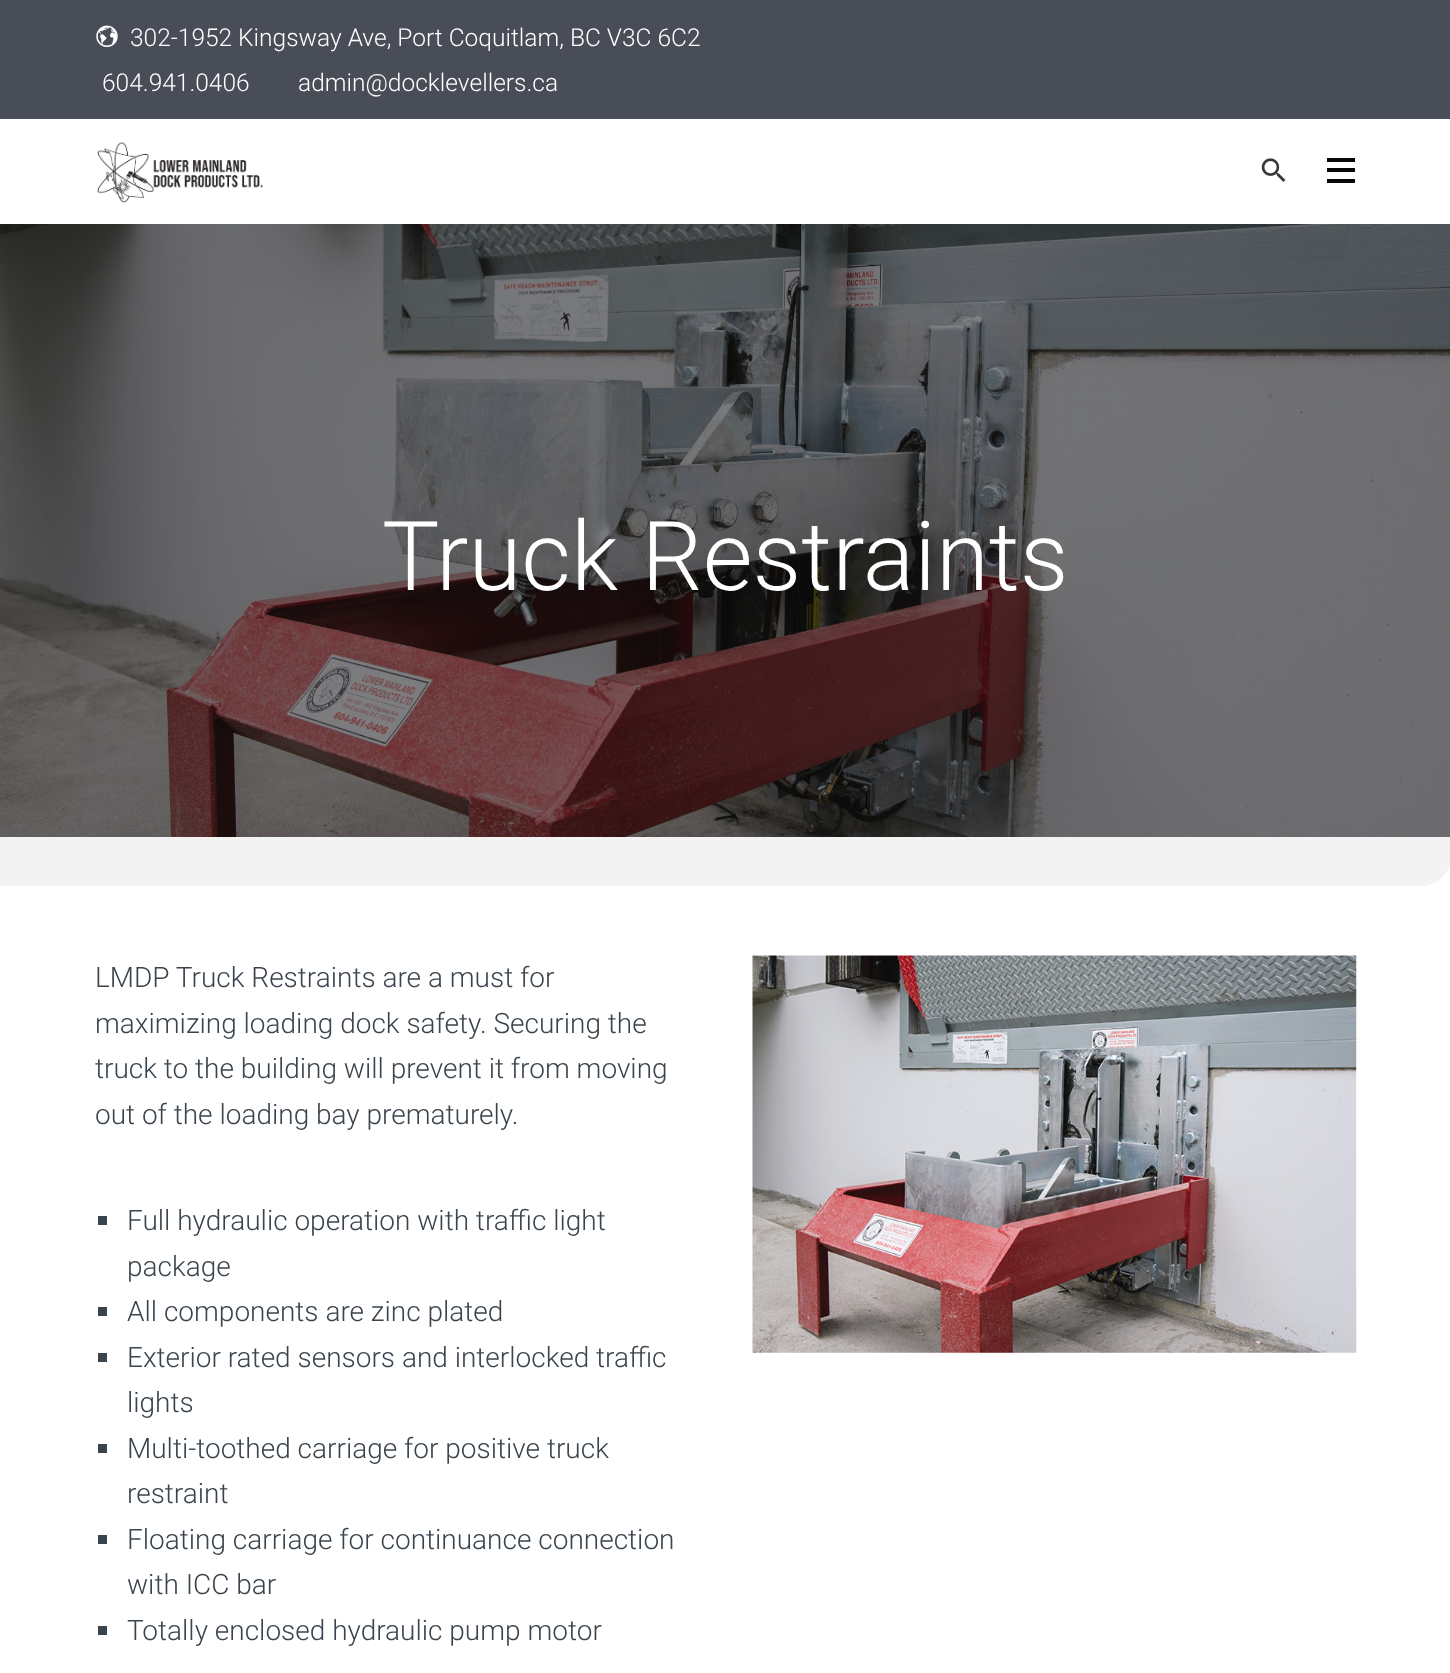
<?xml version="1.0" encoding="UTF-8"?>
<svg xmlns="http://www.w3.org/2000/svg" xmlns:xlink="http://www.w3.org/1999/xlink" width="1450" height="1673">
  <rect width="100%" height="100%" fill="#ffffff" />
  <rect width="1450" height="119" fill="#494d57" />
  <image x="96" y="25" width="22" height="22" xlink:href="image1.png" />
  <image x="97" y="142" width="166" height="61" xlink:href="image2.png" />
  <image x="1261" y="158" width="25" height="24" xlink:href="image3.png" />
  <rect x="1327" y="158" width="28" height="4" fill="#080808" />
  <rect x="1327" y="168" width="28" height="4" fill="#080808" />
  <rect x="1327" y="179" width="28" height="4" fill="#080808" />
  <path d="M 0 807 h 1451 v 49 c 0 16.5 -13.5 30 -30 30 h -1421 z" fill="#f3f3f3" />
  <image x="0" y="224" width="1450" height="613" xlink:href="image4.png" />
  <rect x="98" y="1216" width="9" height="9" fill="#3a444d" />
  <rect x="98" y="1307" width="9" height="9" fill="#3a444d" />
  <rect x="98" y="1353" width="9" height="9" fill="#3a444d" />
  <rect x="98" y="1444" width="9" height="9" fill="#3a444d" />
  <rect x="98" y="1535" width="9" height="9" fill="#3a444d" />
  <rect x="98" y="1626" width="9" height="9" fill="#3a444d" />
  <image x="752" y="955" width="605" height="398" xlink:href="image5.png" />
  <text x="130" y="46" style="font-family: Roboto; font-size: 24.5px; font-weight: 300; fill: #ffffff">302-1952 Kingsway Ave, Port Coquitlam, BC V3C 6C2</text>
  <text x="102" y="91" style="font-family: Roboto; font-size: 24.5px; font-weight: 300; fill: #ffffff">604.941.0406</text>
  <text x="298" y="91" style="font-family: Roboto; font-size: 24.5px; font-weight: 300; fill: #ffffff">admin@docklevellers.ca</text>
  <text x="382" y="590" style="font-family: Roboto; font-size: 96.25px; font-weight: 300; fill: #ffffff">Truck Restraints</text>
  <text x="95" y="987" style="font-family: Roboto; font-size: 28px; font-weight: 300; fill: #3a444d">LMDP Truck Restraints are a must for</text>
  <text x="95" y="1033" style="font-family: Roboto; font-size: 28px; font-weight: 300; fill: #3a444d">maximizing loading dock safety. Securing the</text>
  <text x="95" y="1078" style="font-family: Roboto; font-size: 28px; font-weight: 300; fill: #3a444d">truck to the building will prevent it from moving</text>
  <text x="95" y="1124" style="font-family: Roboto; font-size: 28px; font-weight: 300; fill: #3a444d">out of the loading bay prematurely.</text>
  <text x="127" y="1230" style="font-family: Roboto; font-size: 28px; font-weight: 300; fill: #3a444d">Full hydraulic operation with traffic light</text>
  <text x="127" y="1276" style="font-family: Roboto; font-size: 28px; font-weight: 300; fill: #3a444d">package</text>
  <text x="127" y="1321" style="font-family: Roboto; font-size: 28px; font-weight: 300; fill: #3a444d">All components are zinc plated</text>
  <text x="127" y="1367" style="font-family: Roboto; font-size: 28px; font-weight: 300; fill: #3a444d">Exterior rated sensors and interlocked traffic</text>
  <text x="127" y="1412" style="font-family: Roboto; font-size: 28px; font-weight: 300; fill: #3a444d">lights</text>
  <text x="127" y="1458" style="font-family: Roboto; font-size: 28px; font-weight: 300; fill: #3a444d">Multi-toothed carriage for positive truck</text>
  <text x="127" y="1503" style="font-family: Roboto; font-size: 28px; font-weight: 300; fill: #3a444d">restraint</text>
  <text x="127" y="1549" style="font-family: Roboto; font-size: 28px; font-weight: 300; fill: #3a444d">Floating carriage for continuance connection</text>
  <text x="127" y="1594" style="font-family: Roboto; font-size: 28px; font-weight: 300; fill: #3a444d">with ICC bar</text>
  <text x="127" y="1640" style="font-family: Roboto; font-size: 28px; font-weight: 300; fill: #3a444d">Totally enclosed hydraulic pump motor</text>
</svg>
